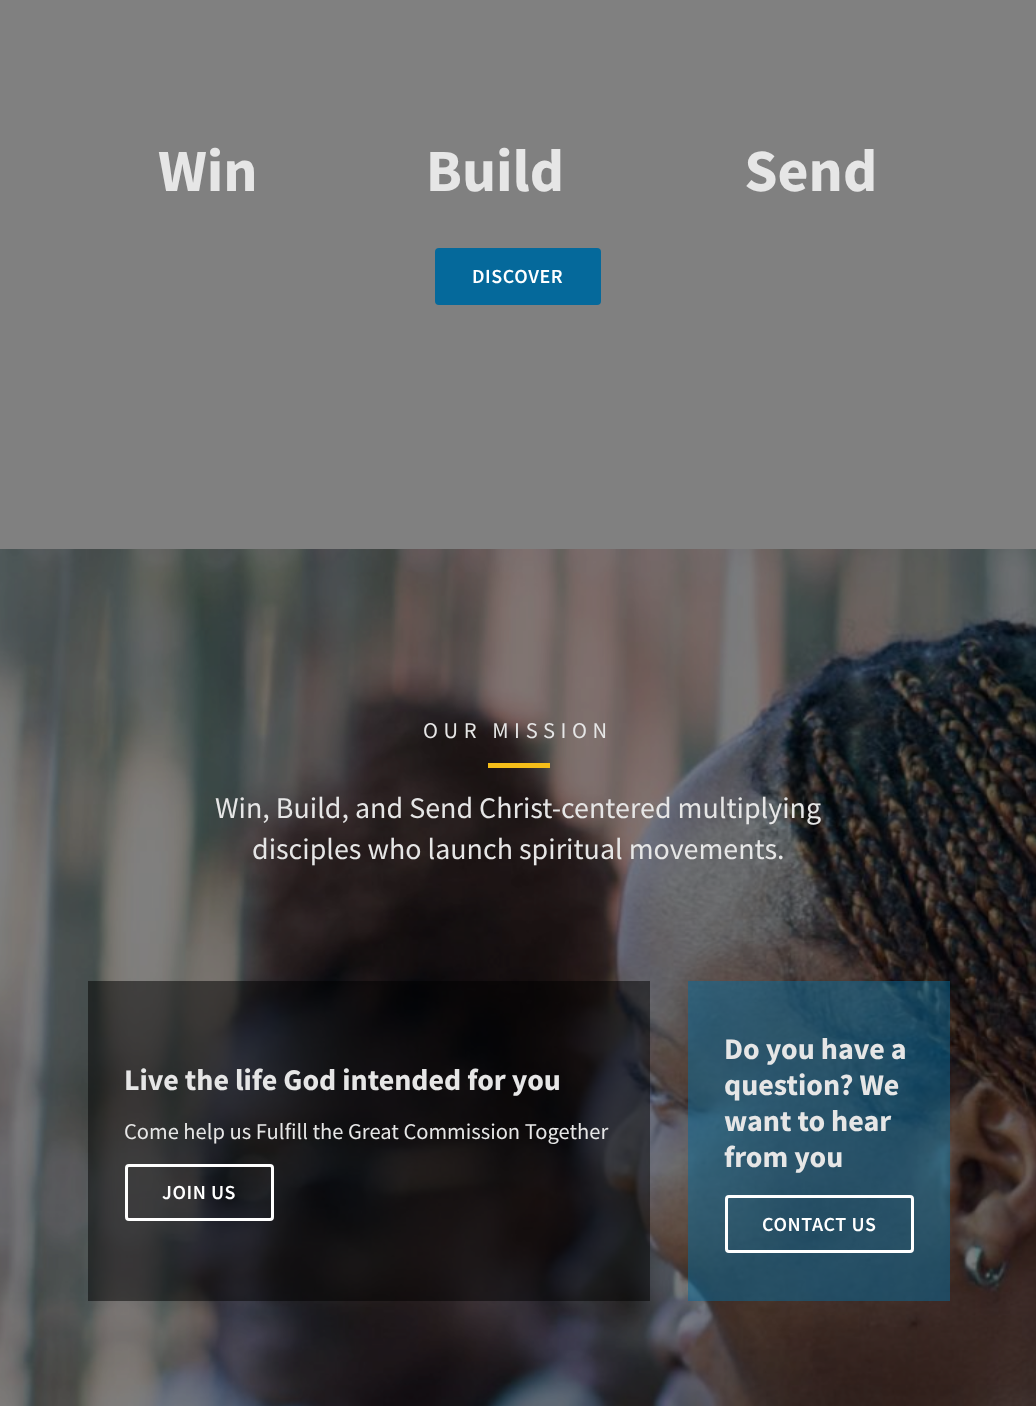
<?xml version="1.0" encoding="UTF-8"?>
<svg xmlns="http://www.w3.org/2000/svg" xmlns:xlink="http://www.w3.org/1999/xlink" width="1036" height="1406">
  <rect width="100%" height="100%" fill="#808080" />
  <rect x="435" y="248" width="166" height="57" rx="4" fill="#05699b" />
  <image x="0" y="549" width="1036" height="857" xlink:href="image1.png" />
  <rect x="488" y="763" width="62" height="5" fill="#f5be19" />
  <rect x="88" y="981" width="562" height="320" fill="#000000" fill-opacity="0.5" />
  <rect x="126.5" y="1165.5" width="146" height="54" rx="2.5" fill="none" stroke="#ffffff" stroke-width="3" />
  <rect x="688" y="981" width="262" height="320" fill="#05699b" fill-opacity="0.5" />
  <rect x="726.5" y="1196.5" width="186" height="55" rx="2.5" fill="none" stroke="#ffffff" stroke-width="3" />
  <text x="158" y="191" style="font-family: Source Sans Pro; font-size: 60px; font-weight: bold; fill: #e6e6e6" xml:space="preserve">Win              Build               Send</text>
  <text x="472" y="283" style="font-family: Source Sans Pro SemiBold; font-size: 20px; font-weight: 600; letter-spacing: 0.6px; fill: #ffffff">DISCOVER</text>
  <text x="423" y="738" style="font-family: Source Sans Pro; font-size: 22.5px; letter-spacing: 5.6px; fill: #e6e6e6">OUR MISSION</text>
  <text x="215" y="818" style="font-family: Source Sans Pro; font-size: 30px; fill: #e6e6e6">Win, Build, and Send Christ-centered multiplying</text>
  <text x="252" y="859" style="font-family: Source Sans Pro; font-size: 30px; fill: #e6e6e6">disciples who launch spiritual movements.</text>
  <text x="124" y="1090" style="font-family: Source Sans Pro; font-size: 30px; font-weight: bold; fill: #e6e6e6">Live the life God intended for you</text>
  <text x="124" y="1139" style="font-family: Source Sans Pro; font-size: 22.5px; fill: #e6e6e6">Come help us Fulfill the Great Commission Together</text>
  <text x="162" y="1199" style="font-family: Source Sans Pro SemiBold; font-size: 20px; font-weight: 600; letter-spacing: 0.6px; fill: #ffffff">JOIN US</text>
  <text x="724" y="1059" style="font-family: Source Sans Pro; font-size: 30px; font-weight: bold; fill: #e6e6e6">Do you have a</text>
  <text x="724" y="1095" style="font-family: Source Sans Pro; font-size: 30px; font-weight: bold; fill: #e6e6e6">question? We</text>
  <text x="724" y="1131" style="font-family: Source Sans Pro; font-size: 30px; font-weight: bold; fill: #e6e6e6">want to hear</text>
  <text x="724" y="1167" style="font-family: Source Sans Pro; font-size: 30px; font-weight: bold; fill: #e6e6e6">from you</text>
  <text x="762" y="1231" style="font-family: Source Sans Pro SemiBold; font-size: 20px; font-weight: 600; letter-spacing: 0.6px; fill: #ffffff">CONTACT US</text>
</svg>
